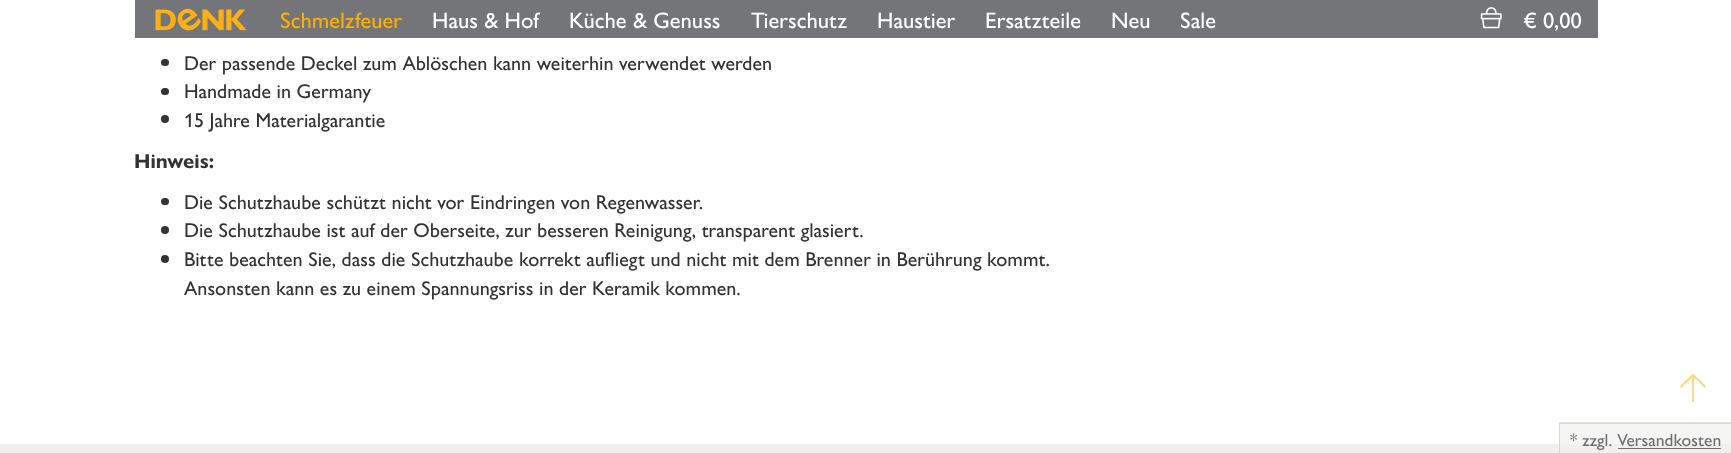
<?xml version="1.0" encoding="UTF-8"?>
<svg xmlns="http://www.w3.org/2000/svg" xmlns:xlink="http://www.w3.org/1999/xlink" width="1731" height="453">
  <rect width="100%" height="100%" fill="#ffffff" />
  <rect x="1559" y="423" width="172" height="21" fill="#f5f5f3" />
  <rect x="135" width="1463" height="38" fill="#747578" />
  <image x="155" y="8" width="91" height="23" xlink:href="image1.png" />
  <image x="1480" y="7" width="22" height="22" xlink:href="image2.png" />
  <rect x="161" y="59" width="8" height="7" rx="3.5" fill="#333333" />
  <rect x="161" y="88" width="8" height="7" rx="3.5" fill="#333333" />
  <circle cx="165" cy="119" r="4" fill="#333333" />
  <rect x="161" y="198" width="8" height="7" rx="3.5" fill="#333333" />
  <circle cx="165" cy="230" r="4" fill="#333333" />
  <circle cx="165" cy="259" r="4" fill="#333333" />
  <path d="M 1680.5 385.5 v 3 l 11.5 -11 v 24.5 h 2 v -24.5 l 11.5 11 v -3 l -12.5 -12 z" fill="#ffd780" />
  <rect y="444" width="1731" height="9" fill="#f1f0ee" />
  <path d="M 1559 422 h 172 v 2 h -171 z" fill="#97989a" fill-opacity="0.3" />
  <path d="M 1559 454 v -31.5 l 1 1.5 v 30 z" fill="#97989a" fill-opacity="0.3" />
  <rect x="1618" y="448" width="103" height="1" fill="#6d6e71" />
  <text x="280" y="28" style="font-family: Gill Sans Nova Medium; font-size: 22.5px; font-weight: 500; fill: #ffaf00">Schmelzfeuer</text>
  <text x="432" y="28" style="font-family: Gill Sans Nova Medium; font-size: 22.5px; font-weight: 500; fill: #ffffff">Haus &amp; Hof</text>
  <text x="569" y="28" style="font-family: Gill Sans Nova Medium; font-size: 22.5px; font-weight: 500; fill: #ffffff">Küche &amp; Genuss</text>
  <text x="751" y="28" style="font-family: Gill Sans Nova Medium; font-size: 22.5px; font-weight: 500; fill: #ffffff">Tierschutz</text>
  <text x="877" y="28" style="font-family: Gill Sans Nova Medium; font-size: 22.5px; font-weight: 500; fill: #ffffff">Haustier</text>
  <text x="985" y="28" style="font-family: Gill Sans Nova Medium; font-size: 22.5px; font-weight: 500; fill: #ffffff">Ersatzteile</text>
  <text x="1111" y="28" style="font-family: Gill Sans Nova Medium; font-size: 22.5px; font-weight: 500; fill: #ffffff">Neu</text>
  <text x="1180" y="28" style="font-family: Gill Sans Nova Medium; font-size: 22.5px; font-weight: 500; fill: #ffffff">Sale</text>
  <text x="1523" y="28" style="font-family: Gill Sans Nova Medium; font-size: 22.5px; font-weight: 500; fill: #ffffff">€ 0,00</text>
  <text x="184" y="70" style="font-family: Gill Sans Nova Medium; font-size: 20px; font-weight: 500; fill: #333333">Der passende Deckel zum Ablöschen kann weiterhin verwendet werden</text>
  <text x="184" y="98" style="font-family: Gill Sans Nova Medium; font-size: 20px; font-weight: 500; fill: #333333">Handmade in Germany</text>
  <text x="184" y="127" style="font-family: Gill Sans Nova Medium; font-size: 20px; font-weight: 500; fill: #333333">15 Jahre Materialgarantie</text>
  <text x="134" y="168" style="font-family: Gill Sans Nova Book; font-size: 20px; font-weight: bold; fill: #333333">Hinweis:</text>
  <text x="184" y="209" style="font-family: Gill Sans Nova Medium; font-size: 20px; font-weight: 500; fill: #333333">Die Schutzhaube schützt nicht vor Eindringen von Regenwasser.</text>
  <text x="184" y="237" style="font-family: Gill Sans Nova Medium; font-size: 20px; font-weight: 500; fill: #333333">Die Schutzhaube ist auf der Oberseite, zur besseren Reinigung, transparent glasiert.</text>
  <text x="184" y="266" style="font-family: Gill Sans Nova Medium; font-size: 20px; font-weight: 500; fill: #333333">Bitte beachten Sie, dass die Schutzhaube korrekt aufliegt und nicht mit dem Brenner in Berührung kommt.</text>
  <text x="184" y="295" style="font-family: Gill Sans Nova Medium; font-size: 20px; font-weight: 500; fill: #333333">Ansonsten kann es zu einem Spannungsriss in der Keramik kommen.</text>
  <text x="1570" y="446" style="font-family: Gill Sans Nova Medium; font-size: 17.5px; font-weight: 500; fill: #6d6e71">* zzgl. Versandkosten</text>
</svg>
